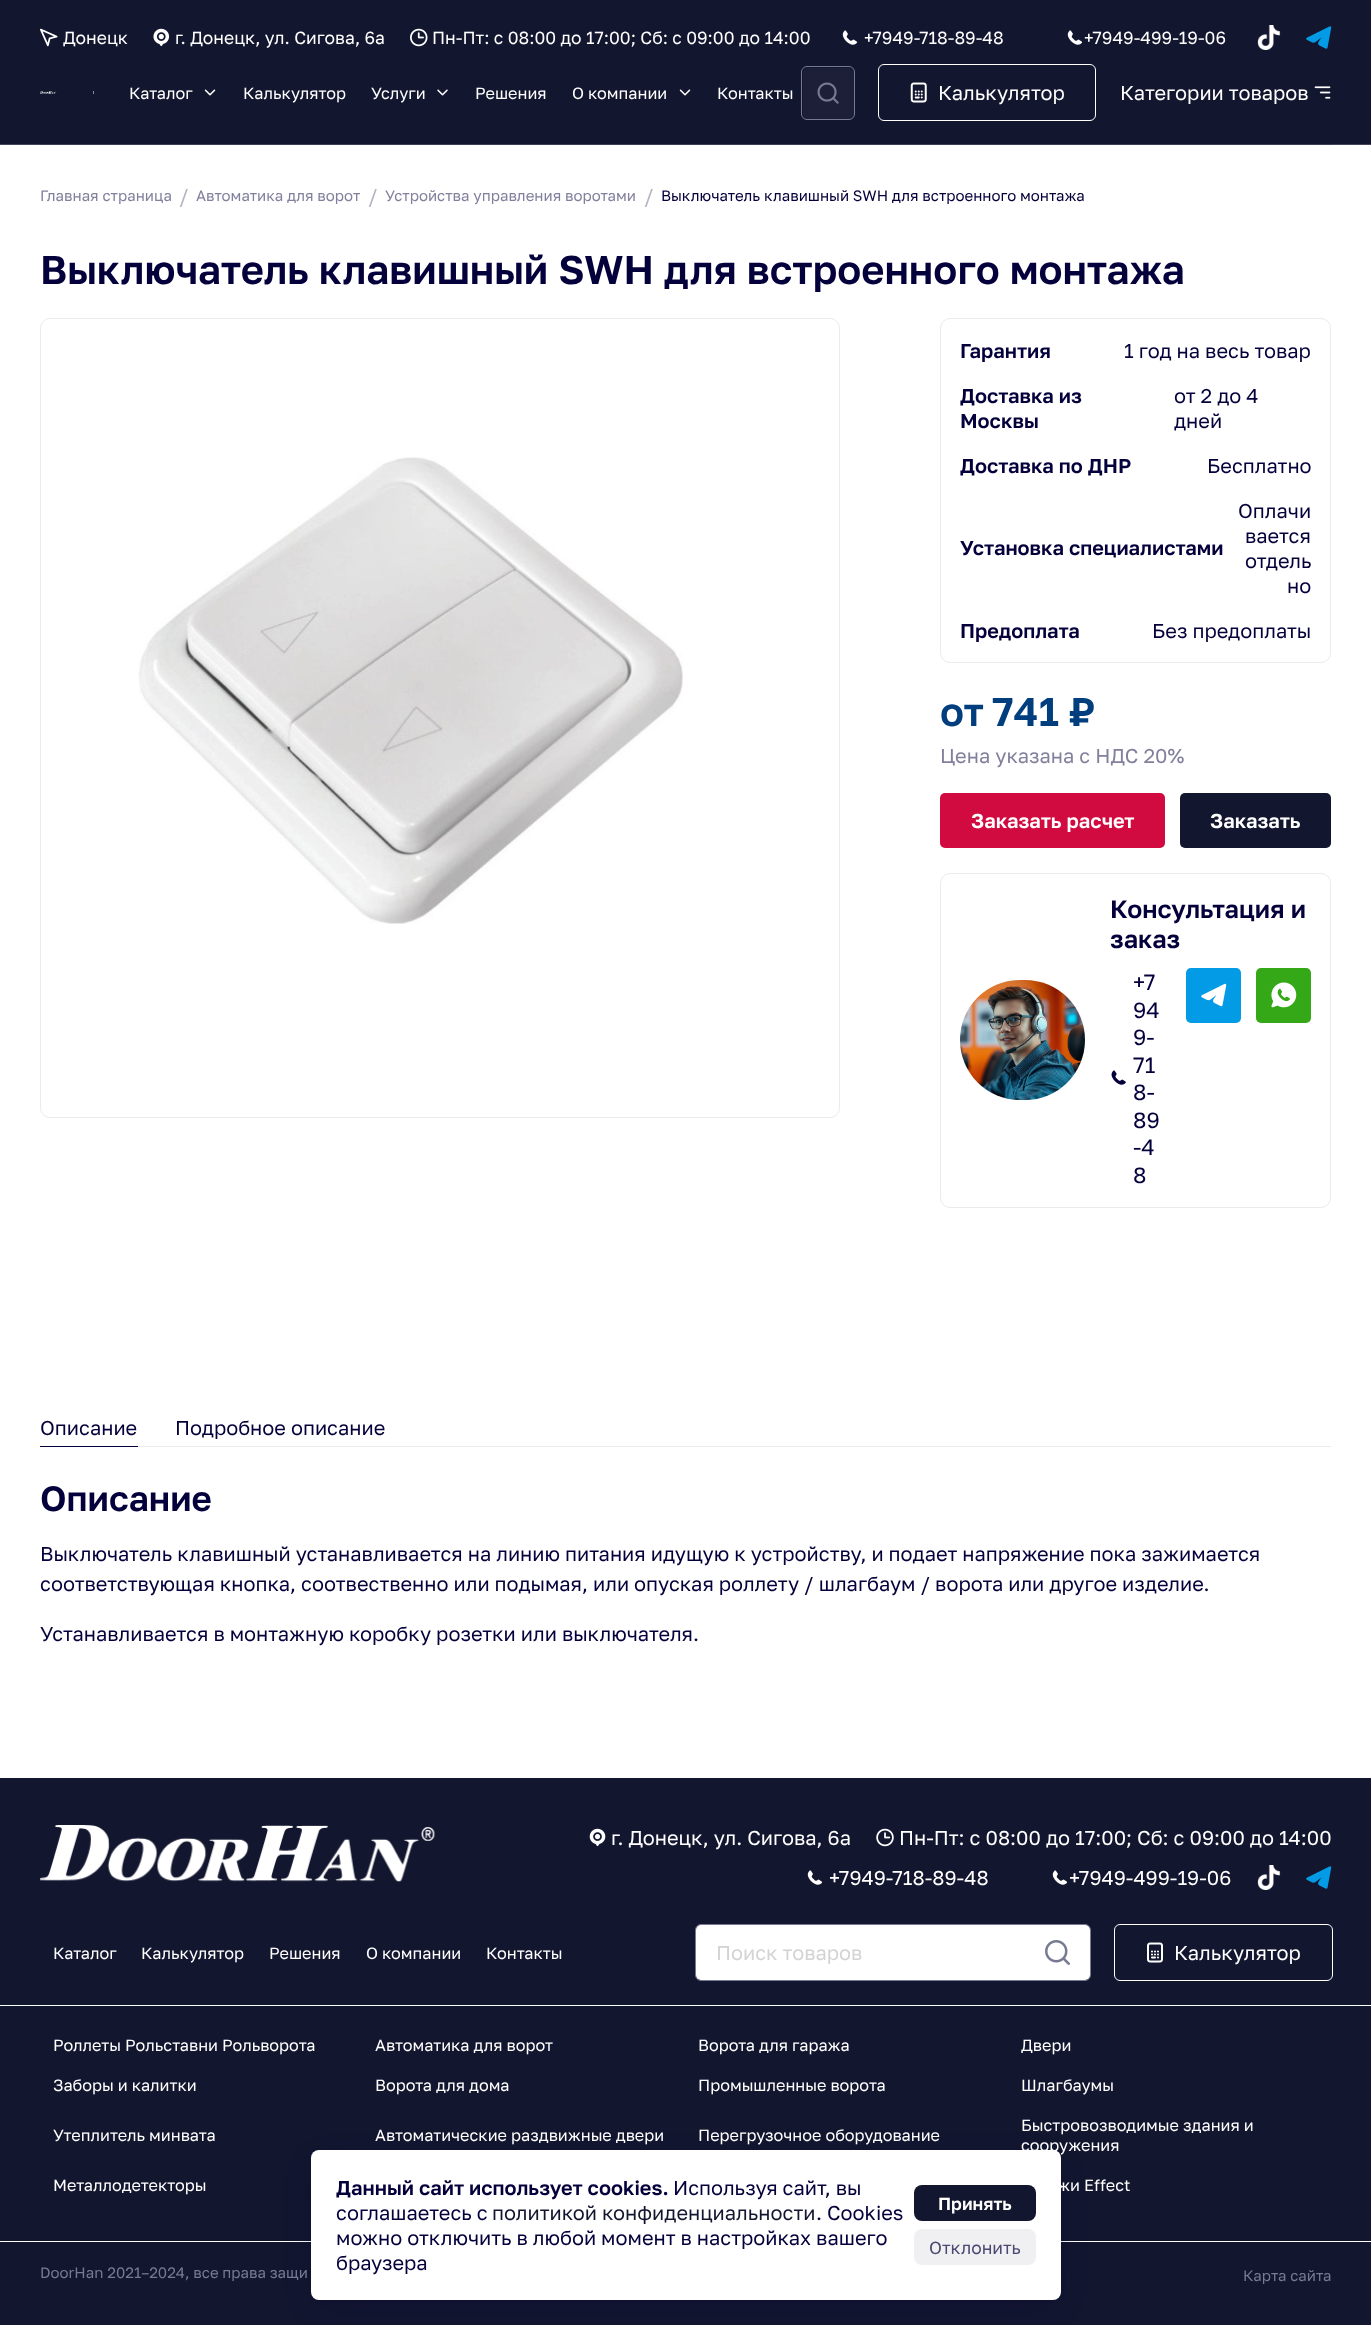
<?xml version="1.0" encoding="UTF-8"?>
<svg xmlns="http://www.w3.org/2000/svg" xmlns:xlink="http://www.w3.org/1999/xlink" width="1371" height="2325">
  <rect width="100%" height="100%" fill="#ffffff" />
  <rect width="1371" height="144" fill="#13162f" />
  <rect y="144" width="1371" height="1" fill="#424559" />
  <image x="40" y="28" width="18" height="19" xlink:href="image1.png" />
  <image x="153" y="28" width="17" height="19" xlink:href="image2.png" />
  <image x="410" y="28" width="18" height="19" xlink:href="image3.png" />
  <image x="842" y="30" width="16" height="15" xlink:href="image4.png" />
  <image x="1067" y="30" width="16" height="15" xlink:href="image4.png" />
  <image x="1257" y="25" width="24" height="25" xlink:href="image5.png" />
  <image x="1306" y="26" width="26" height="23" xlink:href="image6.png" />
  <rect x="40" y="144" width="1291" height="1" fill="#3d3f57" />
  <rect x="93" y="91" width="1" height="3" fill="#898b97" />
  <image x="40" y="91" width="17" height="3" xlink:href="image7.png" />
  <image x="204" y="89" width="12" height="7" xlink:href="image8.png" />
  <image x="437" y="89" width="11" height="7" xlink:href="image9.png" />
  <image x="679" y="89" width="12" height="7" xlink:href="image8.png" />
  <rect x="801.5" y="66.5" width="53" height="53" rx="5.5" fill="none" stroke="#777a92" />
  <rect x="803" y="68" width="51" height="51" rx="5" fill="#777a92" fill-opacity="0.1" />
  <image x="817" y="82" width="22" height="22" xlink:href="image10.png" />
  <rect x="878.5" y="64.5" width="217" height="56" rx="5.5" fill="none" stroke="#ffffff" />
  <image x="910" y="82" width="17" height="21" xlink:href="image11.png" />
  <image x="1314" y="86" width="17" height="13" xlink:href="image12.png" />
  <rect x="40.5" y="318.5" width="799" height="799" rx="9.5" fill="none" stroke="#ebebef" />
  <image x="138" y="457" width="545" height="467" xlink:href="image13.png" />
  <rect x="940.5" y="318.5" width="390" height="344" rx="9.5" fill="none" stroke="#ebebef" />
  <rect x="940" y="793" width="225" height="55" rx="5" fill="#d10a3f" />
  <rect x="1180" y="793" width="151" height="55" rx="5" fill="#13162f" />
  <rect x="940.5" y="873.5" width="390" height="334" rx="9.5" fill="none" stroke="#ebebef" />
  <image x="960" y="980" width="125" height="120" xlink:href="image14.png" />
  <image x="1111" y="1070" width="15" height="15" xlink:href="image15.png" />
  <rect x="1186" y="968" width="55" height="55" rx="5" fill="#039be5" />
  <image x="1201" y="983" width="26" height="24" xlink:href="image16.png" />
  <rect x="1256" y="968" width="55" height="55" rx="5" fill="#35a818" />
  <image x="1271" y="982" width="26" height="26" xlink:href="image17.png" />
  <rect x="138" y="1446" width="1193" height="1" fill="#ebebef" />
  <rect x="40" y="1446" width="98" height="1" fill="#04003b" />
  <rect y="1778" width="1371" height="547" fill="#13162f" />
  <image x="40" y="1825" width="395" height="57" xlink:href="image18.png" />
  <image x="589" y="1828" width="17" height="19" xlink:href="image19.png" />
  <image x="876" y="1828" width="18" height="19" xlink:href="image20.png" />
  <image x="807" y="1870" width="16" height="15" xlink:href="image4.png" />
  <image x="1052" y="1870" width="16" height="15" xlink:href="image4.png" />
  <image x="1257" y="1865" width="24" height="25" xlink:href="image5.png" />
  <image x="1306" y="1866" width="26" height="23" xlink:href="image6.png" />
  <rect x="695.5" y="1924.5" width="395" height="56" rx="5.5" fill="none" stroke="#777a92" />
  <rect x="696" y="1925" width="394" height="55" rx="5" fill="#ffffff" />
  <image x="1045" y="1940" width="25" height="25" xlink:href="image21.png" />
  <rect x="1114.5" y="1924.5" width="218" height="56" rx="5.5" fill="none" stroke="#ffffff" />
  <image x="1147" y="1942" width="16" height="21" xlink:href="image22.png" />
  <rect y="2241" width="1371" height="1" fill="#ffffff" />
  <rect y="2005" width="1371" height="1" fill="#ffffff" />
  <rect x="326" y="2175" width="720" height="120" fill="#04003b" fill-opacity="0.4" filter="blur(19px)" />
  <rect x="313" y="2151" width="747" height="148" rx="6" fill="#04003b" fill-opacity="0.2" filter="blur(2.5px)" />
  <rect x="311" y="2150" width="750" height="150" rx="8" fill="#ffffff" />
  <rect x="914" y="2185" width="122" height="36" rx="8" fill="#13162f" />
  <rect x="914" y="2229" width="122" height="36" rx="8" fill="#f0f0f3" />
  <text x="63" y="44" style="font-family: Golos; font-size: 17.5px; fill: #ffffff">Донецк</text>
  <text x="175" y="44" style="font-family: Golos; font-size: 17.5px; fill: #ffffff">г. Донецк, ул. Сигова, 6а</text>
  <text x="432" y="44" style="font-family: Golos; font-size: 17.5px; fill: #ffffff">Пн-Пт: с 08:00 до 17:00; Сб: с 09:00 до 14:00</text>
  <text x="864" y="44" style="font-family: Golos; font-size: 17.5px; fill: #ffffff">+7949-718-89-48</text>
  <text x="1084" y="44" style="font-family: Golos; font-size: 17.5px; fill: #ffffff">+7949-499-19-06</text>
  <text x="129" y="99" style="font-family: Golos; font-size: 16.25px; fill: #ffffff">Каталог</text>
  <text x="243" y="99" style="font-family: Golos; font-size: 16.25px; fill: #ffffff">Калькулятор</text>
  <text x="371" y="99" style="font-family: Golos; font-size: 16.25px; fill: #ffffff">Услуги</text>
  <text x="475" y="99" style="font-family: Golos; font-size: 16.25px; fill: #ffffff">Решения</text>
  <text x="572" y="99" style="font-family: Golos; font-size: 16.25px; fill: #ffffff">О компании</text>
  <text x="717" y="99" style="font-family: Golos; font-size: 16.25px; fill: #ffffff">Контакты</text>
  <text x="938" y="100" style="font-family: Golos; font-size: 20px; fill: #ffffff">Калькулятор</text>
  <text x="1120" y="100" style="font-family: Golos; font-size: 20px; fill: #ffffff">Категории товаров</text>
  <text x="40" y="201" style="font-family: Golos; font-size: 15px; fill: #82809d">Главная страница</text>
  <text x="179" y="203" style="font-family: Golos; font-size: 20px; fill: #b4b3c4">/</text>
  <text x="196" y="201" style="font-family: Golos; font-size: 15px; fill: #82809d">Автоматика для ворот</text>
  <text x="368" y="203" style="font-family: Golos; font-size: 20px; fill: #b4b3c4">/</text>
  <text x="385" y="201" style="font-family: Golos; font-size: 15px; fill: #82809d">Устройства управления воротами</text>
  <text x="644" y="203" style="font-family: Golos; font-size: 20px; fill: #b4b3c4">/</text>
  <text x="661" y="201" style="font-family: Golos; font-size: 15px; fill: #04003b">Выключатель клавишный SWН для встроенного монтажа</text>
  <text x="40" y="284" style="font-family: Golos; font-size: 40px; font-weight: 600; fill: #04003b">Выключатель клавишный SWН для встроенного монтажа</text>
  <text x="960" y="358" style="font-family: Golos; font-size: 20px; font-weight: 600; fill: #04003b">Гарантия</text>
  <text x="1124" y="358" style="font-family: Golos; font-size: 20px; fill: #04003b">1 год на весь товар</text>
  <text x="960" y="403" style="font-family: Golos; font-size: 20px; font-weight: 600; fill: #04003b">Доставка из</text>
  <text x="960" y="428" style="font-family: Golos; font-size: 20px; font-weight: 600; fill: #04003b">Москвы</text>
  <text x="1174" y="403" style="font-family: Golos; font-size: 20px; fill: #04003b">от 2 до 4</text>
  <text x="1174" y="428" style="font-family: Golos; font-size: 20px; fill: #04003b">дней</text>
  <text x="960" y="473" style="font-family: Golos; font-size: 20px; font-weight: 600; fill: #04003b">Доставка по ДНР</text>
  <text x="1207" y="473" style="font-family: Golos; font-size: 20px; fill: #04003b">Бесплатно</text>
  <text x="960" y="555" style="font-family: Golos; font-size: 20px; font-weight: 600; fill: #04003b">Установка специалистами</text>
  <text x="1238" y="518" style="font-family: Golos; font-size: 20px; fill: #04003b">Оплачи</text>
  <text x="1245" y="543" style="font-family: Golos; font-size: 20px; fill: #04003b">вается</text>
  <text x="1245" y="568" style="font-family: Golos; font-size: 20px; fill: #04003b">отдель</text>
  <text x="1287" y="593" style="font-family: Golos; font-size: 20px; fill: #04003b">но</text>
  <text x="960" y="638" style="font-family: Golos; font-size: 20px; font-weight: 600; fill: #04003b">Предоплата</text>
  <text x="1152" y="638" style="font-family: Golos; font-size: 20px; fill: #04003b">Без предоплаты</text>
  <text x="940" y="726" style="font-family: Golos; font-size: 40px; font-weight: 600; fill: #003e7e">от</text>
  <text x="992" y="726" style="font-family: Golos; font-size: 40px; font-weight: 600; fill: #003e7e">741 ₽</text>
  <text x="940" y="763" style="font-family: Golos; font-size: 20px; fill: #82809d">Цена указана с НДС 20%</text>
  <text x="971" y="828" style="font-family: Golos; font-size: 20px; font-weight: 600; fill: #ffffff">Заказать расчет</text>
  <text x="1210" y="828" style="font-family: Golos; font-size: 20px; font-weight: 600; fill: #ffffff">Заказать</text>
  <text x="1110" y="918" style="font-family: Golos; font-size: 25px; font-weight: 600; fill: #04003b">Консультация и</text>
  <text x="1110" y="948" style="font-family: Golos; font-size: 25px; font-weight: 600; fill: #04003b">заказ</text>
  <text x="1133" y="990" style="font-family: Golos; font-size: 22px; fill: #04003b">+7</text>
  <text x="1133" y="1018" style="font-family: Golos; font-size: 22px; fill: #04003b">94</text>
  <text x="1133" y="1045" style="font-family: Golos; font-size: 22px; fill: #04003b">9-</text>
  <text x="1133" y="1073" style="font-family: Golos; font-size: 22px; fill: #04003b">71</text>
  <text x="1133" y="1100" style="font-family: Golos; font-size: 22px; fill: #04003b">8-</text>
  <text x="1133" y="1128" style="font-family: Golos; font-size: 22px; fill: #04003b">89</text>
  <text x="1133" y="1155" style="font-family: Golos; font-size: 22px; fill: #04003b">-4</text>
  <text x="1133" y="1183" style="font-family: Golos; font-size: 22px; fill: #04003b">8</text>
  <text x="40" y="1435" style="font-family: Golos; font-size: 20px; fill: #04003b">Описание</text>
  <text x="175" y="1435" style="font-family: Golos; font-size: 20px; fill: #04003b">Подробное описание</text>
  <text x="40" y="1511" style="font-family: Golos; font-size: 35px; font-weight: 600; fill: #04003b">Описание</text>
  <text x="40" y="1561" style="font-family: Golos; font-size: 20px; fill: #04003b">Выключатель клавишный устанавливается на линию питания идущую к устройству, и подает напряжение пока зажимается</text>
  <text x="40" y="1591" style="font-family: Golos; font-size: 20px; fill: #04003b">соответствующая кнопка, соотвественно или подымая, или опуская роллету / шлагбаум / ворота или другое изделие.</text>
  <text x="40" y="1641" style="font-family: Golos; font-size: 20px; fill: #04003b">Устанавливается в монтажную коробку розетки или выключателя.</text>
  <text x="611" y="1845" style="font-family: Golos; font-size: 20px; fill: #ffffff">г. Донецк, ул. Сигова, 6а</text>
  <text x="899" y="1845" style="font-family: Golos; font-size: 20px; fill: #ffffff">Пн-Пт: с 08:00 до 17:00; Сб: с 09:00 до 14:00</text>
  <text x="829" y="1885" style="font-family: Golos; font-size: 20px; fill: #ffffff">+7949-718-89-48</text>
  <text x="1069" y="1885" style="font-family: Golos; font-size: 20px; fill: #ffffff">+7949-499-19-06</text>
  <text x="53" y="1959" style="font-family: Golos; font-size: 16.25px; fill: #ffffff">Каталог</text>
  <text x="141" y="1959" style="font-family: Golos; font-size: 16.25px; fill: #ffffff">Калькулятор</text>
  <text x="269" y="1959" style="font-family: Golos; font-size: 16.25px; fill: #ffffff">Решения</text>
  <text x="366" y="1959" style="font-family: Golos; font-size: 16.25px; fill: #ffffff">О компании</text>
  <text x="486" y="1959" style="font-family: Golos; font-size: 16.25px; fill: #ffffff">Контакты</text>
  <text x="716" y="1960" style="font-family: Golos; font-size: 20px; fill: #d3d3d3">Поиск товаров</text>
  <text x="1174" y="1960" style="font-family: Golos; font-size: 20px; fill: #ffffff">Калькулятор</text>
  <text x="53" y="2051" style="font-family: Golos; font-size: 16.25px; fill: #ffffff">Роллеты Рольставни Рольворота</text>
  <text x="375" y="2051" style="font-family: Golos; font-size: 16.25px; fill: #ffffff">Автоматика для ворот</text>
  <text x="698" y="2051" style="font-family: Golos; font-size: 16.25px; fill: #ffffff">Ворота для гаража</text>
  <text x="1021" y="2051" style="font-family: Golos; font-size: 16.25px; fill: #ffffff">Двери</text>
  <text x="53" y="2091" style="font-family: Golos; font-size: 16.25px; fill: #ffffff">Заборы и калитки</text>
  <text x="375" y="2091" style="font-family: Golos; font-size: 16.25px; fill: #ffffff">Ворота для дома</text>
  <text x="698" y="2091" style="font-family: Golos; font-size: 16.25px; fill: #ffffff">Промышленные ворота</text>
  <text x="1021" y="2091" style="font-family: Golos; font-size: 16.25px; fill: #ffffff">Шлагбаумы</text>
  <text x="53" y="2141" style="font-family: Golos; font-size: 16.25px; fill: #ffffff">Утеплитель минвата</text>
  <text x="375" y="2141" style="font-family: Golos; font-size: 16.25px; fill: #ffffff">Автоматические раздвижные двери</text>
  <text x="698" y="2141" style="font-family: Golos; font-size: 16.25px; fill: #ffffff">Перегрузочное оборудование</text>
  <text x="1021" y="2131" style="font-family: Golos; font-size: 16.25px; fill: #ffffff">Быстровозводимые здания и</text>
  <text x="1021" y="2151" style="font-family: Golos; font-size: 16.25px; fill: #ffffff">сооружения</text>
  <text x="53" y="2191" style="font-family: Golos; font-size: 16.25px; fill: #ffffff">Металлодетекторы</text>
  <text x="1057" y="2191" style="font-family: Golos; font-size: 16.25px; fill: #ffffff">жи Effect</text>
  <text x="40" y="2278" style="font-family: Golos; font-size: 15px; fill: #777a92">DoorHan 2021–2024, все права защи</text>
  <text x="1243" y="2281" style="font-family: Golos; font-size: 15px; fill: #777a92">Карта сайта</text>
  <text x="336" y="2195" style="font-family: Golos; font-size: 20px; font-weight: 600; fill: #04003b">Данный сайт использует cookies.</text>
  <text x="673" y="2195" style="font-family: Golos; font-size: 20px; fill: #04003b">Используя сайт, вы</text>
  <text x="336" y="2220" style="font-family: Golos; font-size: 20px; fill: #04003b">соглашаетесь с</text>
  <text x="492" y="2220" style="font-family: Golos; font-size: 20px; fill: #13162f">политикой конфиденциальности</text>
  <text x="816" y="2220" style="font-family: Golos; font-size: 20px; fill: #04003b">. Cookies</text>
  <text x="336" y="2245" style="font-family: Golos; font-size: 20px; fill: #04003b">можно отключить в любой момент в настройках вашего</text>
  <text x="336" y="2270" style="font-family: Golos; font-size: 20px; fill: #04003b">браузера</text>
  <text x="938" y="2210" style="font-family: Golos; font-size: 17.5px; font-weight: 600; fill: #ffffff">Принять</text>
  <text x="929" y="2254" style="font-family: Golos; font-size: 17.5px; fill: #4b4872">Отклонить</text>
</svg>
